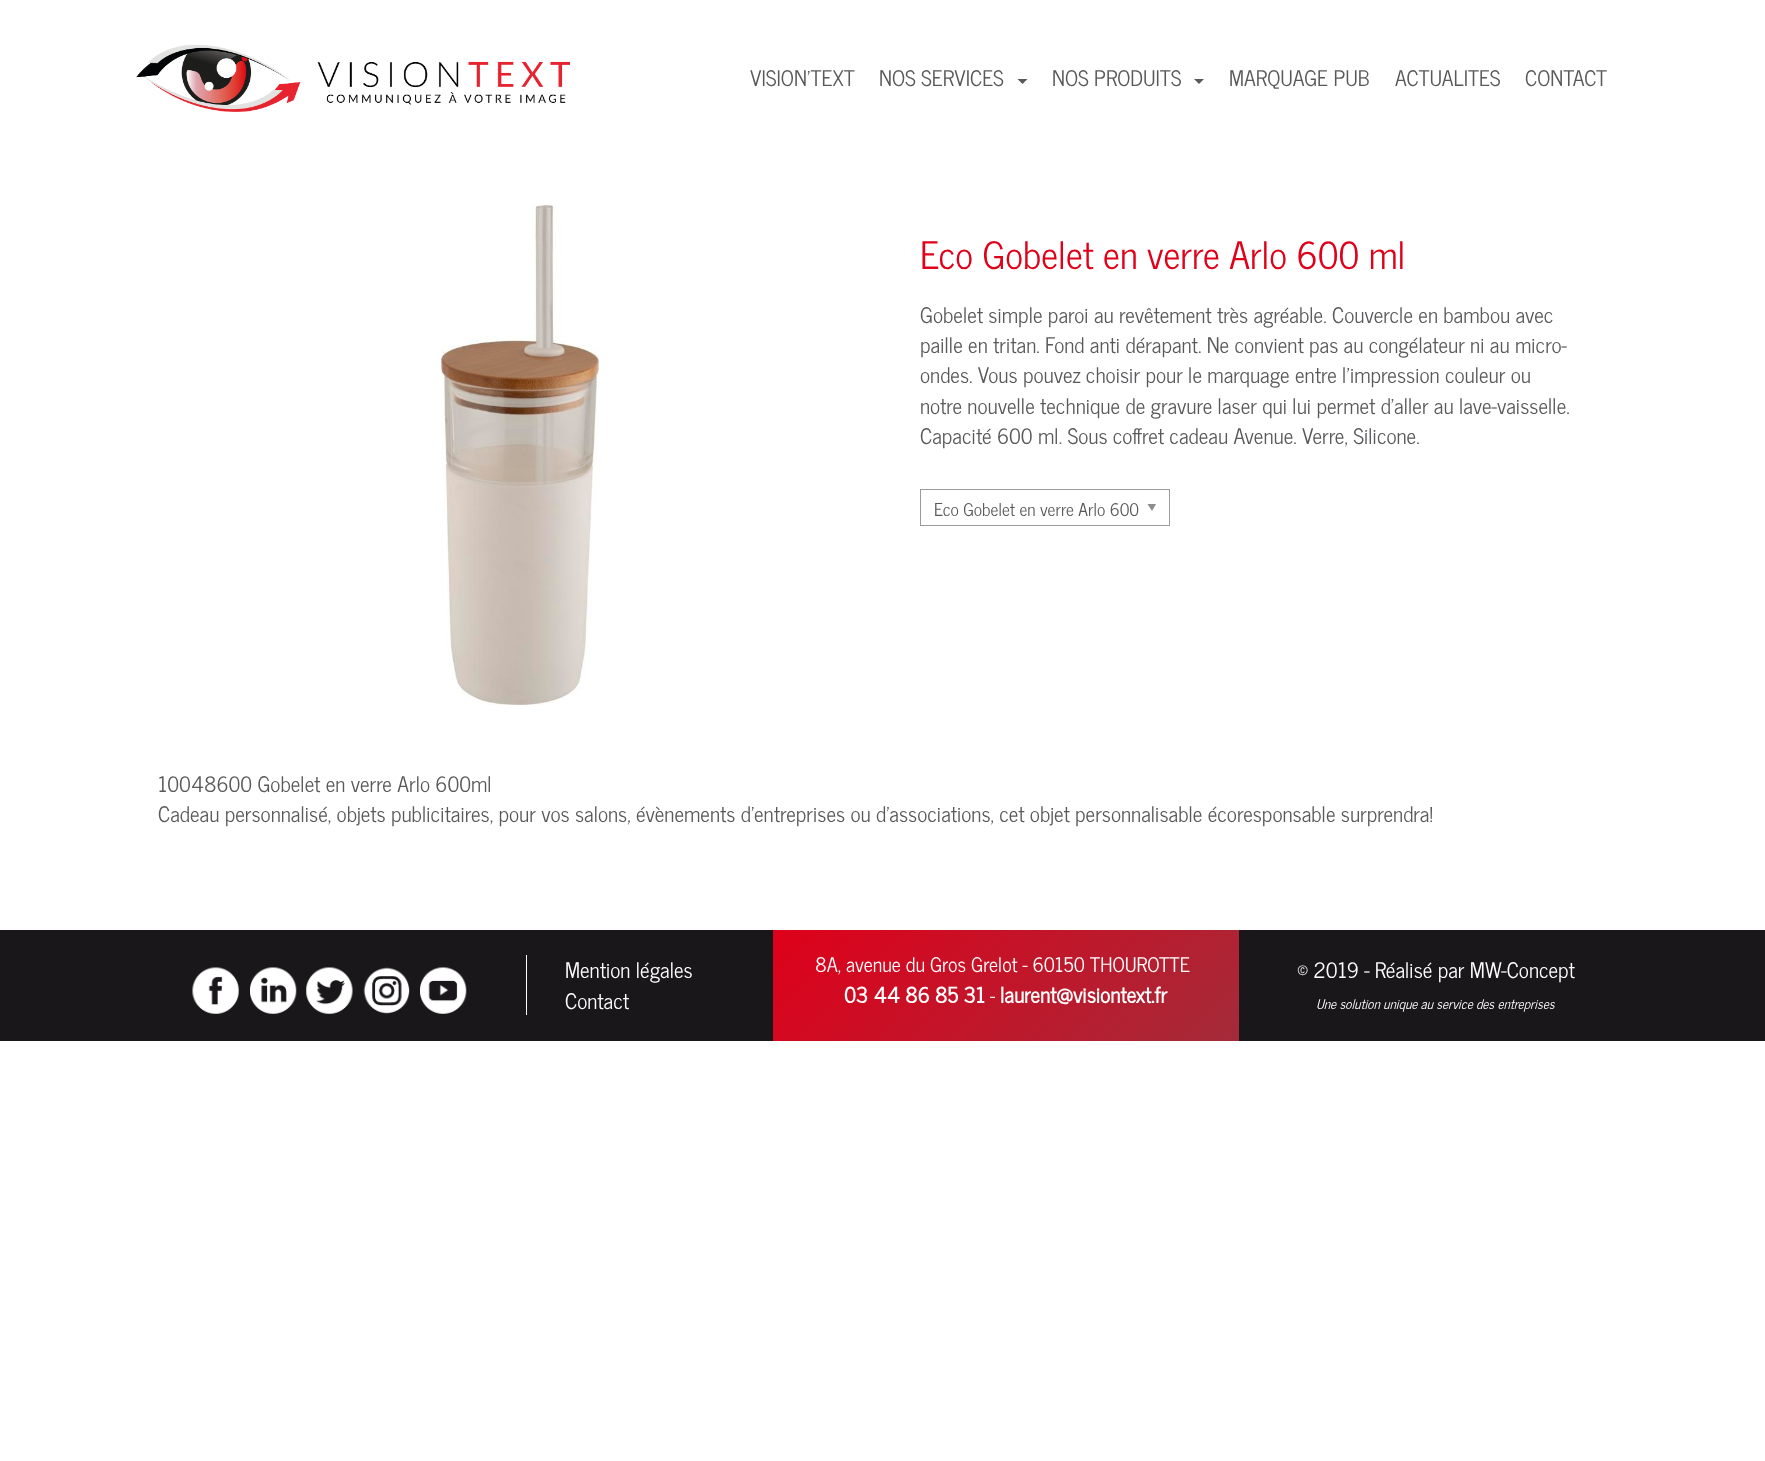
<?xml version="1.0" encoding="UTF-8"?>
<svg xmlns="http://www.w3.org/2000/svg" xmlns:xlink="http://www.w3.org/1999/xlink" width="1765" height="1461">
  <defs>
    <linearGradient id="g1" gradientUnits="userSpaceOnUse" x1="861" y1="841" x2="1150" y2="1130"><stop offset="0" stop-color="#df001a" /><stop offset="1" stop-color="#a42b39" /></linearGradient>
  </defs>
  <rect width="100%" height="100%" fill="#ffffff" />
  <image x="136" y="44" width="434" height="68" xlink:href="image1.png" />
  <path d="M 1017.5 79 h 10 l -5 5 z" fill="#59595b" />
  <path d="M 1194 79 h 10 l -5 5 z" fill="#59595b" />
  <image x="441" y="205" width="158" height="500" xlink:href="image2.png" />
  <path d="M 1156 504 l -4 7 l -4.5 -7 z" fill="#8b8c8c" />
  <rect x="920.5" y="489.5" width="249" height="36" fill="none" stroke="#9b9b9b" />
  <rect y="930" width="1765" height="111" fill="#1a171b" />
  <image x="192" y="967" width="47" height="47" xlink:href="image3.png" />
  <image x="250" y="967" width="47" height="47" xlink:href="image4.png" />
  <image x="306" y="967" width="47" height="47" xlink:href="image5.png" />
  <image x="363" y="967" width="47" height="47" xlink:href="image6.png" />
  <image x="420" y="967" width="47" height="47" xlink:href="image7.png" />
  <rect x="526" y="955" width="1" height="60" fill="#ffffff" />
  <rect x="773" y="930" width="466" height="111" fill="url(#g1)" />
  <text x="750" y="86" style="font-family: News Cycle; font-size: 21.25px; fill: #59595b">VISION'TEXT</text>
  <text x="879" y="86" style="font-family: News Cycle; font-size: 21.25px; fill: #59595b">NOS SERVICES</text>
  <text x="1052" y="86" style="font-family: News Cycle; font-size: 21.25px; fill: #59595b">NOS PRODUITS</text>
  <text x="1229" y="86" style="font-family: News Cycle; font-size: 21.25px; fill: #59595b">MARQUAGE PUB</text>
  <text x="1395" y="86" style="font-family: News Cycle; font-size: 21.25px; fill: #59595b">ACTUALITES</text>
  <text x="1525" y="86" style="font-family: News Cycle; font-size: 21.25px; fill: #59595b">CONTACT</text>
  <text x="920" y="269" style="font-family: News Cycle; font-size: 37.5px; fill: #df001a">Eco Gobelet en verre Arlo 600 ml</text>
  <text x="920" y="323" style="font-family: News Cycle; font-size: 21.25px; fill: #59595b">Gobelet simple paroi au revêtement très agréable. Couvercle en bambou avec</text>
  <text x="920" y="353" style="font-family: News Cycle; font-size: 21.25px; fill: #59595b">paille en tritan. Fond anti dérapant. Ne convient pas au congélateur ni au micro-</text>
  <text x="920" y="383" style="font-family: News Cycle; font-size: 21.25px; fill: #59595b">ondes. Vous pouvez choisir pour le marquage entre l'impression couleur ou</text>
  <text x="920" y="414" style="font-family: News Cycle; font-size: 21.25px; fill: #59595b">notre nouvelle technique de gravure laser qui lui permet d'aller au lave-vaisselle.</text>
  <text x="920" y="444" style="font-family: News Cycle; font-size: 21.25px; fill: #59595b">Capacité 600 ml. Sous coffret cadeau Avenue. Verre, Silicone.</text>
  <text x="934" y="516" style="font-family: News Cycle; font-size: 17.5px; fill: #59595b">Eco Gobelet en verre Arlo 600</text>
  <text x="158" y="792" style="font-family: News Cycle; font-size: 21.25px; fill: #59595b">10048600 Gobelet en verre Arlo 600ml</text>
  <text x="158" y="822" style="font-family: News Cycle; font-size: 21.25px; fill: #59595b">Cadeau personnalisé, objets publicitaires, pour vos salons, évènements d'entreprises ou d'associations, cet objet personnalisable écoresponsable surprendra!</text>
  <text x="565" y="978" style="font-family: News Cycle; font-size: 21.25px; fill: #ffffff">Mention légales</text>
  <text x="565" y="1009" style="font-family: News Cycle; font-size: 21.25px; fill: #ffffff">Contact</text>
  <text x="815" y="972" style="font-family: News Cycle; font-size: 20px; fill: #ffffff">8A, avenue du Gros Grelot - 60150 THOUROTTE</text>
  <text x="844" y="1003" style="font-family: News Cycle; font-size: 21.25px; font-weight: bold; fill: #ffffff">03 44 86 85 31</text>
  <text x="990" y="1003" style="font-family: News Cycle; font-size: 20px; fill: #ffffff">-</text>
  <text x="1000" y="1003" style="font-family: News Cycle; font-size: 21.25px; font-weight: bold; fill: #ffffff">laurent@visiontext.fr</text>
  <text x="1297" y="978" style="font-family: News Cycle; font-size: 21.25px; fill: #ffffff">© 2019 - Réalisé par MW-Concept</text>
  <text x="1316" y="1009" style="font-family: News Cycle; font-size: 13.3px; font-style: italic; fill: #ffffff">Une solution unique au service des entreprises</text>
</svg>
